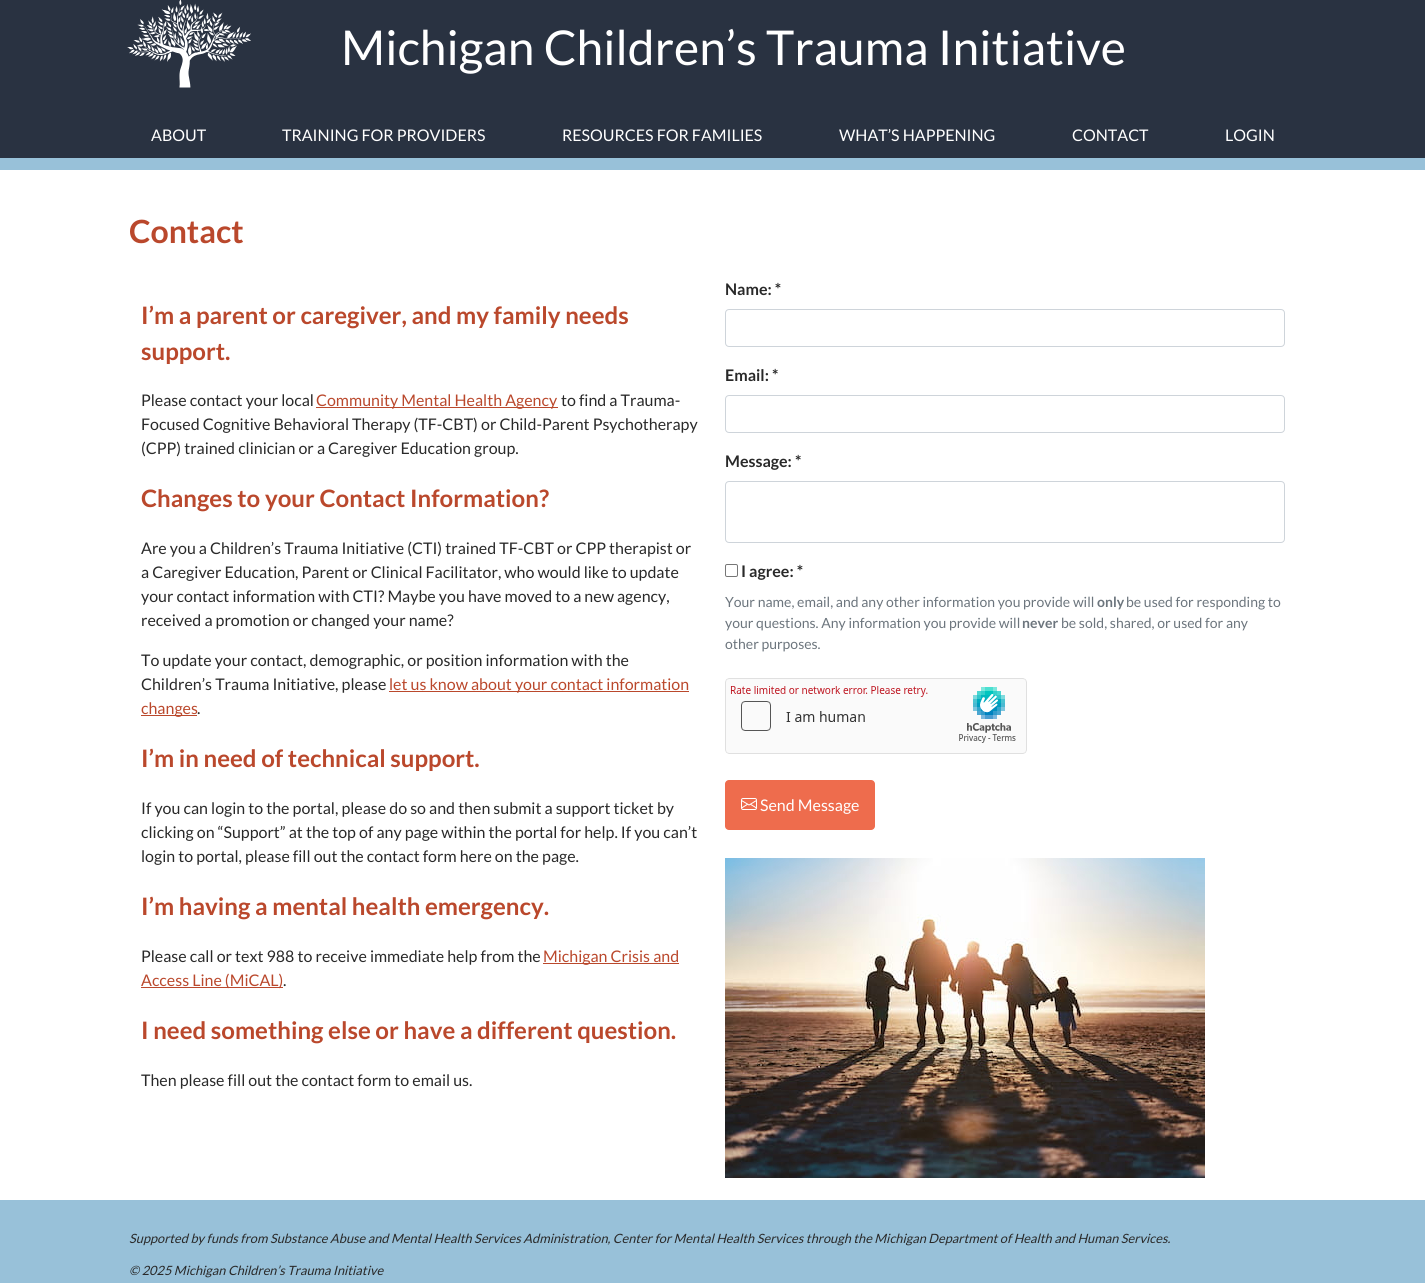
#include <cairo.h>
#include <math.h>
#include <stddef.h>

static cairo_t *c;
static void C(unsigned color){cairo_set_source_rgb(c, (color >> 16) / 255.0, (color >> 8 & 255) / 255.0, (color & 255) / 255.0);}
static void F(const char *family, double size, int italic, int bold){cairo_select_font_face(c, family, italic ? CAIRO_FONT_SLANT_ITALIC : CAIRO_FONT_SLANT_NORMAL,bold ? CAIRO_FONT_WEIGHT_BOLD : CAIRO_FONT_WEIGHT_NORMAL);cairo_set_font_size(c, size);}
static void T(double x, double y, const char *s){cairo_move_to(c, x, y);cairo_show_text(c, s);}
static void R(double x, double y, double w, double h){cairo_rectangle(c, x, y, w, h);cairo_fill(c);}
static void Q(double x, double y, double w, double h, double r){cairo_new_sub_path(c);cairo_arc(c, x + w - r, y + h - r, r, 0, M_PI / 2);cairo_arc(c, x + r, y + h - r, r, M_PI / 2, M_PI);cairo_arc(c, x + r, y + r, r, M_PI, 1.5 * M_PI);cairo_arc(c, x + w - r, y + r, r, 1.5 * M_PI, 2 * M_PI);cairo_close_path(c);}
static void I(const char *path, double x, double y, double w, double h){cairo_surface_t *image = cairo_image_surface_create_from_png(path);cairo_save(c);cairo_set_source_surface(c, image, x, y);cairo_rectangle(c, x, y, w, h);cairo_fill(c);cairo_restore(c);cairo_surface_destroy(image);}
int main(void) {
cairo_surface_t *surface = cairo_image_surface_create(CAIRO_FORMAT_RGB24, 1425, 1283);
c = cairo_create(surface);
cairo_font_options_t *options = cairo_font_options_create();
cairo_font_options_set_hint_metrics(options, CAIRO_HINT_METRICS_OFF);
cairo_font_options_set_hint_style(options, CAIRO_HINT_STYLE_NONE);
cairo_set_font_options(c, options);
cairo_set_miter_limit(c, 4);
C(0xffffff);
cairo_paint(c);
C(0x293241);
R(0,0,1425,158);
C(0x98c1d9);
R(0,158,1425,12);
I("1.png",127,0,124,88);
F("Lato",48,0,0);
C(0xffffff);
T(341,65,"Michigan Children’s Trauma Initiative");
F("Lato",16,0,0);
T(151,141,"ABOUT");
T(282,141,"TRAINING FOR PROVIDERS");
T(562,141,"RESOURCES FOR FAMILIES");
T(839,141,"WHAT’S HAPPENING");
T(1072,141,"CONTACT");
T(1225,141,"LOGIN");
F("Lato",32,0,1);
C(0xba482c);
T(129,243,"Contact");
F("Lato",24,0,1);
T(141,324,"I’m a parent or caregiver, and my family needs");
T(141,360,"support.");
F("Lato",16,0,0);
C(0x292929);
T(141,406,"Please contact your local");
C(0xba482c);
R(316,407,242,1);
T(316,406,"Community Mental Health Agency");
C(0x292929);
T(561,406,"to find a Trauma-");
T(141,430,"Focused Cognitive Behavioral Therapy (TF-CBT) or Child-Parent Psychotherapy");
T(141,454,"(CPP) trained clinician or a Caregiver Education group.");
F("Lato",24,0,1);
C(0xba482c);
T(141,507,"Changes to your Contact Information?");
F("Lato",16,0,0);
C(0x292929);
T(141,554,"Are you a Children’s Trauma Initiative (CTI) trained TF-CBT or CPP therapist or");
T(141,578,"a Caregiver Education, Parent or Clinical Facilitator, who would like to update");
T(141,602,"your contact information with CTI? Maybe you have moved to a new agency,");
T(141,626,"received a promotion or changed your name?");
T(141,666,"To update your contact, demographic, or position information with the");
T(141,690,"Children’s Trauma Initiative, please");
C(0xba482c);
R(389,691,300,1);
T(389,690,"let us know about your contact information");
R(141,715,56,1);
T(141,714,"changes");
C(0x292929);
T(197,714,".");
F("Lato",24,0,1);
C(0xba482c);
T(141,767,"I’m in need of technical support.");
F("Lato",16,0,0);
C(0x292929);
T(141,814,"If you can login to the portal, please do so and then submit a support ticket by");
T(141,838,"clicking on “Support” at the top of any page within the portal for help. If you can’t");
T(141,862,"login to portal, please fill out the contact form here on the page.");
F("Lato",24,0,1);
C(0xba482c);
T(141,915,"I’m having a mental health emergency.");
F("Lato",16,0,0);
C(0x292929);
T(141,962,"Please call or text 988 to receive immediate help from the");
C(0xba482c);
R(543,963,136,1);
T(543,962,"Michigan Crisis and");
R(141,987,142,1);
T(141,986,"Access Line (MiCAL)");
C(0x292929);
T(283,986,".");
F("Lato",24,0,1);
C(0xba482c);
T(141,1039,"I need something else or have a different question.");
F("Lato",16,0,0);
C(0x292929);
T(141,1086,"Then please fill out the contact form to email us.");
F("Lato",16,0,1);
T(725,295,"Name: *");
Q(725.5,309.5,559,37,3.5);
C(0xced4da);
cairo_set_line_width(c,1);
cairo_stroke(c);
C(0x292929);
T(725,381,"Email: *");
Q(725.5,395.5,559,37,3.5);
C(0xced4da);
cairo_stroke(c);
C(0x292929);
T(725,467,"Message: *");
Q(725.5,481.5,559,61,3.5);
C(0xced4da);
cairo_stroke(c);
Q(725.5,564.5,12,12,1.5);
C(0x767676);
cairo_stroke(c);
C(0x292929);
T(741,577,"I agree: *");
F("Lato",14,0,0);
C(0x6c757d);
T(725,607,"Your name, email, and any other information you provide will");
F("Lato",14,0,1);
T(1097,607,"only");
F("Lato",14,0,0);
T(1126,607,"be used for responding to");
T(725,628,"your questions. Any information you provide will");
F("Lato",14,0,1);
T(1022,628,"never");
F("Lato",14,0,0);
T(1061,628,"be sold, shared, or used for any");
T(725,649,"other purposes.");
I("2.png",725,678,302,76);
C(0xee6c4d);
Q(725,780,150,50,4);
cairo_fill(c);
I("3.png",741,798,16,12);
F("Lato",16,0,0);
C(0xffffff);
T(760,811,"Send Message");
I("4.png",725,858,480,320);
C(0x98c1d9);
R(0,1200,1425,83);
F("Lato",12.8,1,0);
C(0x292929);
T(129,1243,"Supported by funds from Substance Abuse and Mental Health Services Administration, Center for Mental Health Services through the Michigan Department of Health and Human Services.");
T(129,1275,"© 2025 Michigan Children’s Trauma Initiative");
cairo_surface_write_to_png(surface, "o.png");
cairo_font_options_destroy(options);
cairo_destroy(c);
cairo_surface_destroy(surface);
return 0;
}
